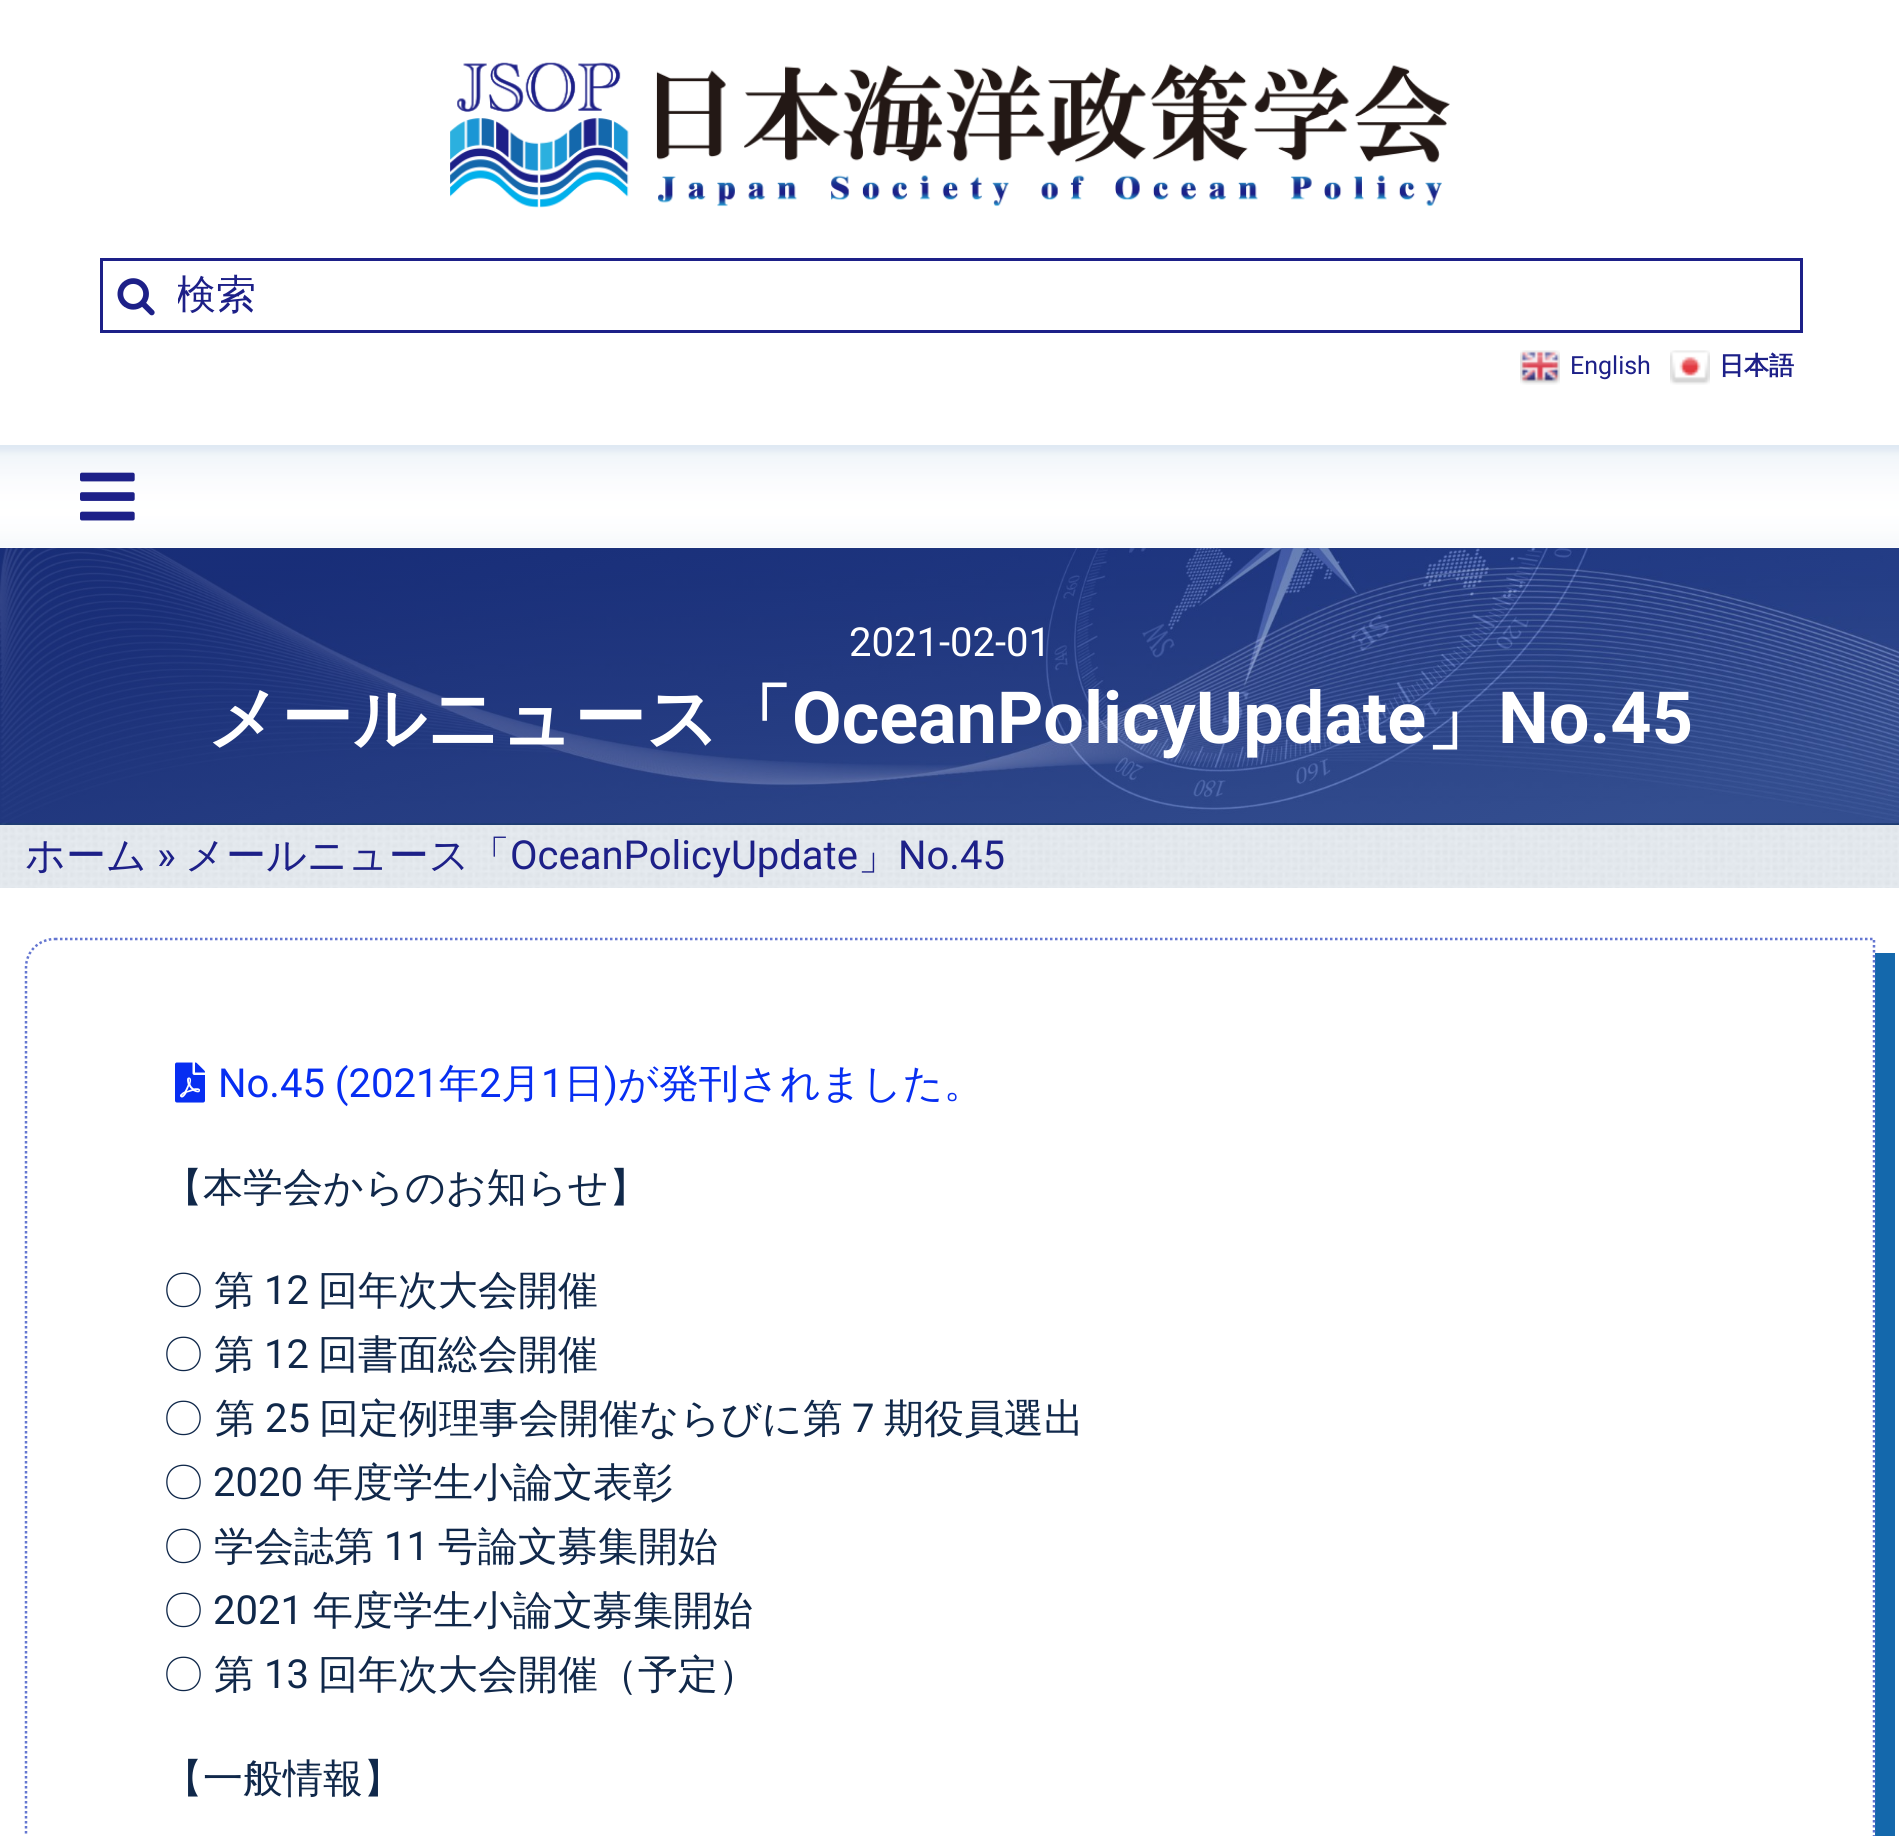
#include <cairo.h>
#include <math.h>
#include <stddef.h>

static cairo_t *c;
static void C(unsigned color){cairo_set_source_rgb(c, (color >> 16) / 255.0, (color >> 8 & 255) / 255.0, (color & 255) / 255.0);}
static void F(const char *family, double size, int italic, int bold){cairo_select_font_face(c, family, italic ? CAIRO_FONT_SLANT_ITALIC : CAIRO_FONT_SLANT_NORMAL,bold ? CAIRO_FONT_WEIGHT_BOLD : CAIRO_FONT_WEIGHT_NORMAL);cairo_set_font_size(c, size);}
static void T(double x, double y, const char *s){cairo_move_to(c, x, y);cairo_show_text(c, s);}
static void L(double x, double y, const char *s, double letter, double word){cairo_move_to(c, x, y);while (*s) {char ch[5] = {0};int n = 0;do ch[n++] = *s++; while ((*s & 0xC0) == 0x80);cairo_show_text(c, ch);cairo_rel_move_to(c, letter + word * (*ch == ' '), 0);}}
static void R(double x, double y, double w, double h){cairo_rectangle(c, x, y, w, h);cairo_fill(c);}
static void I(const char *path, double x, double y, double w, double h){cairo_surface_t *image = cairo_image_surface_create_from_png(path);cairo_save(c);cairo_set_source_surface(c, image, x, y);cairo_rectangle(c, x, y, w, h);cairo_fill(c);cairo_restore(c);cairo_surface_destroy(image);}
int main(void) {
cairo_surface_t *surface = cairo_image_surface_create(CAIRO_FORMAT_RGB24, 1899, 1836);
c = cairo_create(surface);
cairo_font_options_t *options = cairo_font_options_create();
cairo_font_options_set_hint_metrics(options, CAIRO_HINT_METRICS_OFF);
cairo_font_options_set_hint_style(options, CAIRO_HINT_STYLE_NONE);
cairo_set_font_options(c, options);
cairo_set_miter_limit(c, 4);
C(0xffffff);
cairo_paint(c);
I("1.png",0,825,1899,63);
I("2.png",450,62,1000,146);
cairo_rectangle(c,101.5,259.5,1700,72);
C(0x1d2088);
cairo_set_line_width(c,3);
cairo_stroke(c);
I("3.png",117,278,38,38);
cairo_save(c);
cairo_rectangle(c,178,270,1547,53);
cairo_clip(c);
F("WenQuanYi Zen Hei Medium",40,0,0);
T(176,308,"検索");
cairo_restore(c);
I("4.png",1520,350,40,35);
F("Roboto",25,0,0);
T(1570,374,"English");
I("5.png",1670,350,40,35);
F("WenQuanYi Zen Hei",25,0,1);
T(1719,374,"日本語");
I("6.png",0,445,1899,103);
I("7.png",80,472,55,49);
I("8.png",0,548,1899,277);
F("Roboto",40,0,0);
C(0xffffff);
T(849,656,"2021-02-01");
F("WenQuanYi Zen Hei",72,0,1);
T(207,743,"メールニュース「");
F("Roboto",72,0,1);
T(792,743,"OceanPolicyUpdate");
F("WenQuanYi Zen Hei",72,0,1);
T(1426,743,"」");
F("Roboto",72,0,1);
T(1498,743,"No.45");
cairo_set_source_rgba(c,0.878,0.918,0.957,0.5);
R(0,825,1899,63);
F("WenQuanYi Zen Hei Medium",40,0,0);
C(0x1d2088);
T(25,869,"ホーム");
F("Roboto",40,0,0);
T(157,869,"»");
F("WenQuanYi Zen Hei Medium",40,0,0);
T(185,869,"メールニュース「");
F("Roboto",40,0,0);
T(510,869,"OceanPolicyUpdate");
F("WenQuanYi Zen Hei Medium",40,0,0);
T(858,869,"」");
F("Roboto",40,0,0);
T(898,869,"No.45");
C(0x1468ac);
cairo_new_path(c);
cairo_move_to(c,45,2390);
cairo_line_to(c,45,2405);
cairo_line_to(c,1865,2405);
cairo_curve_to(c,1882,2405,1895,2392,1895,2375);
cairo_line_to(c,1895,953);
cairo_line_to(c,1875,953);
cairo_line_to(c,1875,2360);
cairo_curve_to(c,1875,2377,1862,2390,1845,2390);
cairo_close_path(c);
cairo_fill(c);
cairo_new_path(c);
cairo_move_to(c,55,939);
cairo_line_to(c,1874,939);
cairo_line_to(c,1874,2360);
cairo_curve_to(c,1874,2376,1861,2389,1845,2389);
cairo_line_to(c,26,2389);
cairo_line_to(c,26,967.5);
cairo_curve_to(c,26,951.5,39,939,55,939);
cairo_close_path(c);
C(0x6476d1);
cairo_set_line_width(c,2.5);
cairo_set_dash(c,(double[]){2.5,2.5},2,0);
cairo_stroke(c);
I("9.png",175,1062,30,41);
C(0x072ef2);
T(218,1097,"No.45 (2021");
F("WenQuanYi Zen Hei Medium",40,0,0);
T(439,1097,"年");
F("Roboto",40,0,0);
T(479,1097,"2");
F("WenQuanYi Zen Hei Medium",40,0,0);
T(501,1097,"月");
F("Roboto",40,0,0);
T(541,1097,"1");
F("WenQuanYi Zen Hei Medium",40,0,0);
T(564,1097,"日");
F("Roboto",40,0,0);
T(604,1097,")");
F("WenQuanYi Zen Hei Medium",40,0,0);
T(618,1097,"が発刊されました。");
C(0x10284a);
T(163,1201,"【本学会からのお知らせ】");
L(163,1304,"〇 第",0,-1);
F("Roboto",40,0,0);
T(264,1304,"12");
F("WenQuanYi Zen Hei Medium",40,0,0);
T(318,1304,"回年次大会開催");
L(163,1368,"〇 第",0,-1);
F("Roboto",40,0,0);
T(264,1368,"12");
F("WenQuanYi Zen Hei Medium",40,0,0);
T(318,1368,"回書面総会開催");
T(163,1432,"〇 第");
F("Roboto",40,0,0);
T(265,1432,"25");
F("WenQuanYi Zen Hei Medium",40,0,0);
T(319,1432,"回定例理事会開催ならびに第");
F("Roboto",40,0,0);
T(852,1432,"7");
F("WenQuanYi Zen Hei Medium",40,0,0);
T(884,1432,"期役員選出");
T(163,1496,"〇");
F("Roboto",40,0,0);
T(213,1496,"2020");
F("WenQuanYi Zen Hei Medium",40,0,0);
T(313,1496,"年度学生小論文表彰");
L(163,1560,"〇 学会誌第",0,-1);
F("Roboto",40,0,0);
T(384,1560,"11");
F("WenQuanYi Zen Hei Medium",40,0,0);
T(438,1560,"号論文募集開始");
T(163,1624,"〇");
F("Roboto",40,0,0);
T(213,1624,"2021");
F("WenQuanYi Zen Hei Medium",40,0,0);
T(313,1624,"年度学生小論文募集開始");
L(163,1688,"〇 第",0,-1);
F("Roboto",40,0,0);
T(264,1688,"13");
F("WenQuanYi Zen Hei Medium",40,0,0);
T(318,1688,"回年次大会開催（予定）");
T(163,1792,"【一般情報】");
cairo_surface_write_to_png(surface, "o.png");
cairo_font_options_destroy(options);
cairo_destroy(c);
cairo_surface_destroy(surface);
return 0;
}
